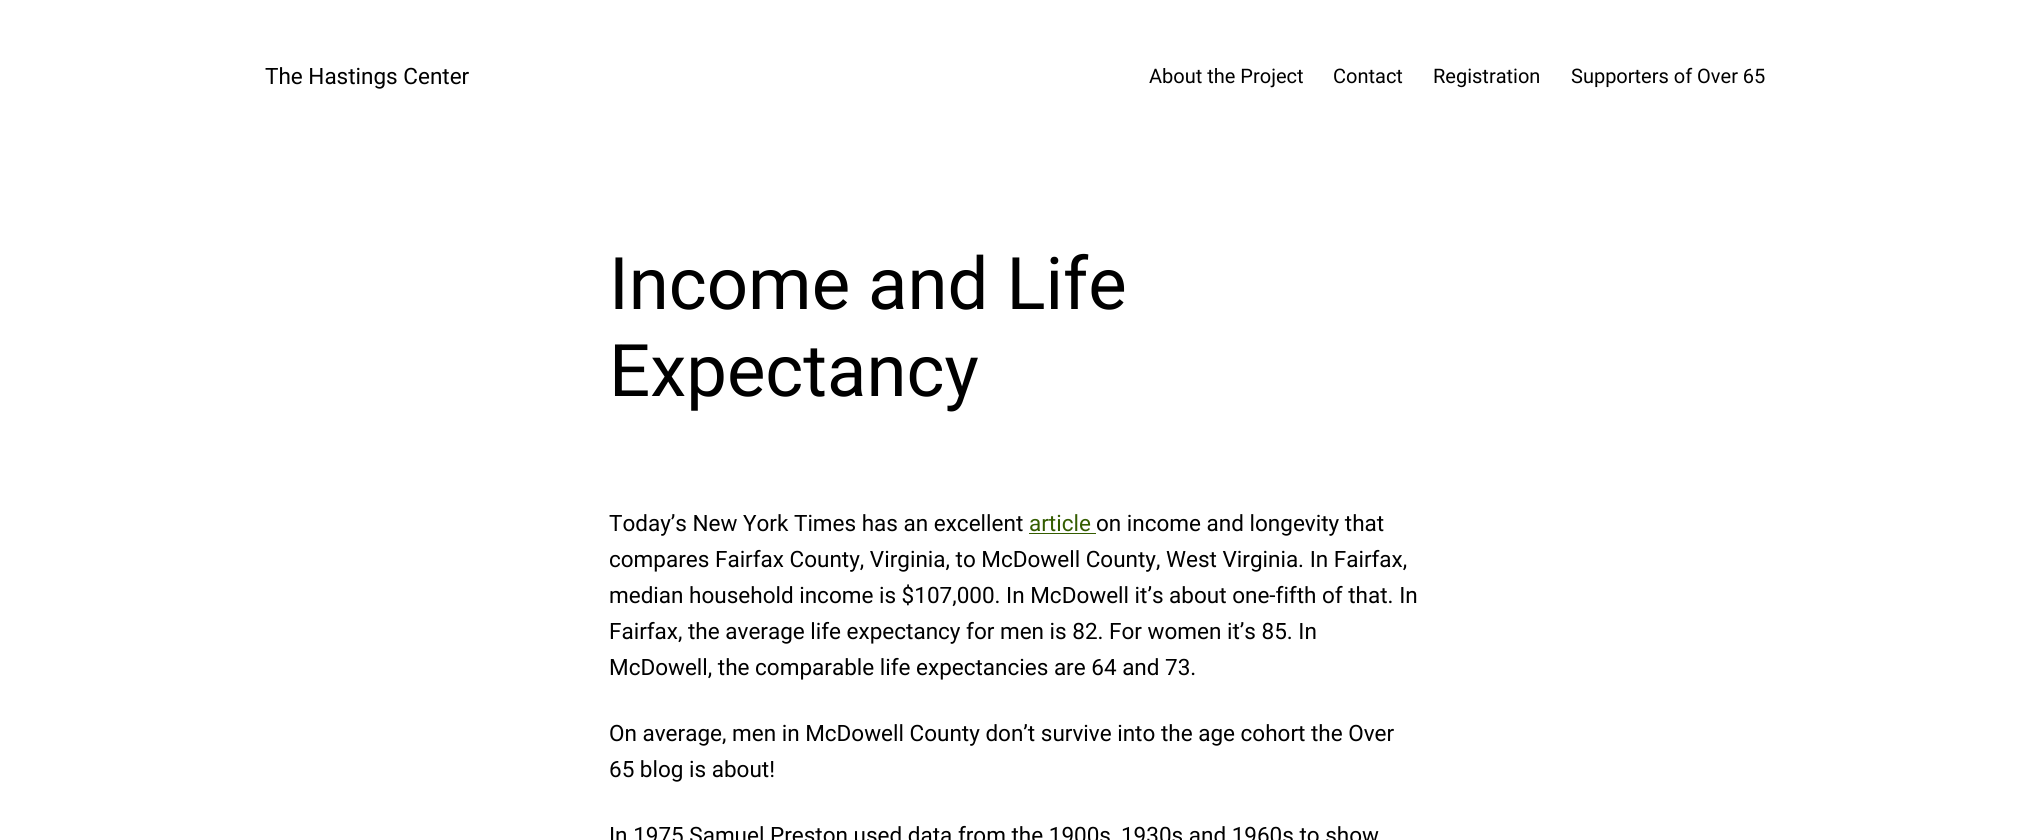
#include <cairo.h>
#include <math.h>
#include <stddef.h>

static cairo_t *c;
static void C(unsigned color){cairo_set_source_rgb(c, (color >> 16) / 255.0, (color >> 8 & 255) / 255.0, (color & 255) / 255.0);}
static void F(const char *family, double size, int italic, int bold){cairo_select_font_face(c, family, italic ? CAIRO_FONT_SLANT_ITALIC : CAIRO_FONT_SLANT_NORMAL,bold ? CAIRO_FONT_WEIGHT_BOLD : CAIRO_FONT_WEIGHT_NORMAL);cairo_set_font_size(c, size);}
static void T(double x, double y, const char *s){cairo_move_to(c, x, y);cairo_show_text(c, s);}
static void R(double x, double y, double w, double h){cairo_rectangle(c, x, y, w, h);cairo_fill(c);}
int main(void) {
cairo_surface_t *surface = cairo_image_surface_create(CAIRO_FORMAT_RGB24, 2030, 840);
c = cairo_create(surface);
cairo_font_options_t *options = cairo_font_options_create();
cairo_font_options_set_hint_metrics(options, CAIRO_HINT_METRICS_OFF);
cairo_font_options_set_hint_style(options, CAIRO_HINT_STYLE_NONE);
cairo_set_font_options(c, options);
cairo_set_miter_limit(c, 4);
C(0xffffff);
cairo_paint(c);
F("Roboto",22.5,0,0);
C(0x000000);
T(265,84,"The Hastings Center");
F("Roboto",20,0,0);
T(1149,83,"About the Project");
T(1333,83,"Contact");
T(1433,83,"Registration");
T(1571,83,"Supporters of Over 65");
F("Roboto",72.5,0,0);
T(609,309,"Income and Life");
T(609,396,"Expectancy");
F("Roboto",22.5,0,0);
T(609,531,"Today’s New York Times has an excellent");
C(0x345c00);
T(1029,531,"article");
R(1029,533,67,1);
C(0x000000);
T(1096,531,"on income and longevity that");
T(609,567,"compares Fairfax County, Virginia, to McDowell County, West Virginia. In Fairfax,");
T(609,603,"median household income is $107,000. In McDowell it’s about one-fifth of that. In");
T(609,639,"Fairfax, the average life expectancy for men is 82. For women it’s 85. In");
T(609,675,"McDowell, the comparable life expectancies are 64 and 73.");
T(609,741,"On average, men in McDowell County don’t survive into the age cohort the Over");
T(609,777,"65 blog is about!");
T(609,843,"In 1975 Samuel Preston used data from the 1900s, 1930s and 1960s to show");
cairo_surface_write_to_png(surface, "o.png");
cairo_font_options_destroy(options);
cairo_destroy(c);
cairo_surface_destroy(surface);
return 0;
}
